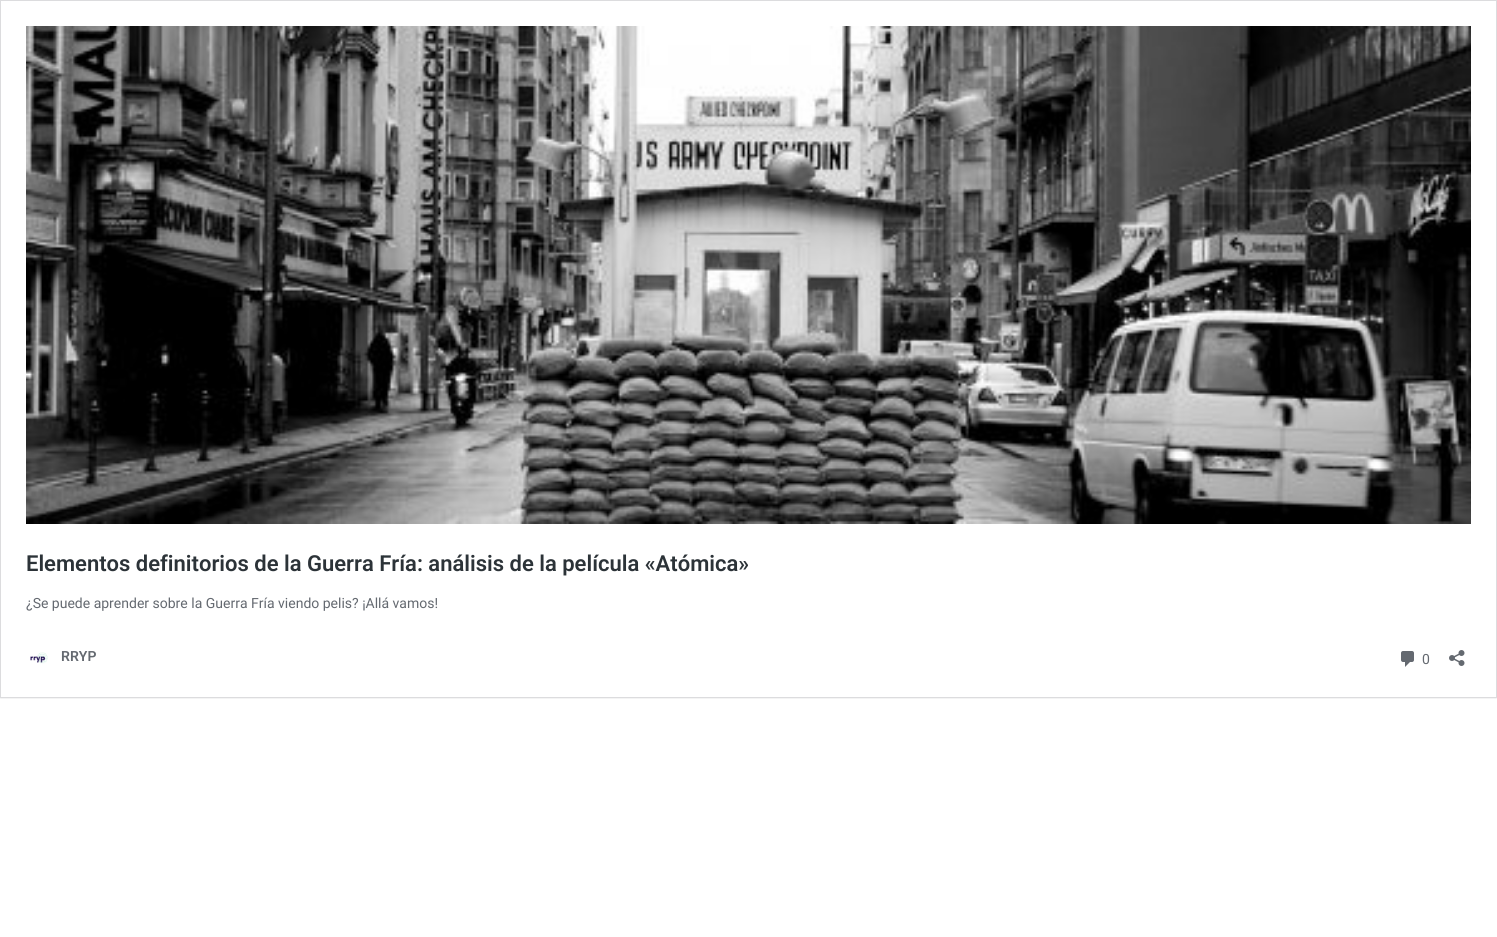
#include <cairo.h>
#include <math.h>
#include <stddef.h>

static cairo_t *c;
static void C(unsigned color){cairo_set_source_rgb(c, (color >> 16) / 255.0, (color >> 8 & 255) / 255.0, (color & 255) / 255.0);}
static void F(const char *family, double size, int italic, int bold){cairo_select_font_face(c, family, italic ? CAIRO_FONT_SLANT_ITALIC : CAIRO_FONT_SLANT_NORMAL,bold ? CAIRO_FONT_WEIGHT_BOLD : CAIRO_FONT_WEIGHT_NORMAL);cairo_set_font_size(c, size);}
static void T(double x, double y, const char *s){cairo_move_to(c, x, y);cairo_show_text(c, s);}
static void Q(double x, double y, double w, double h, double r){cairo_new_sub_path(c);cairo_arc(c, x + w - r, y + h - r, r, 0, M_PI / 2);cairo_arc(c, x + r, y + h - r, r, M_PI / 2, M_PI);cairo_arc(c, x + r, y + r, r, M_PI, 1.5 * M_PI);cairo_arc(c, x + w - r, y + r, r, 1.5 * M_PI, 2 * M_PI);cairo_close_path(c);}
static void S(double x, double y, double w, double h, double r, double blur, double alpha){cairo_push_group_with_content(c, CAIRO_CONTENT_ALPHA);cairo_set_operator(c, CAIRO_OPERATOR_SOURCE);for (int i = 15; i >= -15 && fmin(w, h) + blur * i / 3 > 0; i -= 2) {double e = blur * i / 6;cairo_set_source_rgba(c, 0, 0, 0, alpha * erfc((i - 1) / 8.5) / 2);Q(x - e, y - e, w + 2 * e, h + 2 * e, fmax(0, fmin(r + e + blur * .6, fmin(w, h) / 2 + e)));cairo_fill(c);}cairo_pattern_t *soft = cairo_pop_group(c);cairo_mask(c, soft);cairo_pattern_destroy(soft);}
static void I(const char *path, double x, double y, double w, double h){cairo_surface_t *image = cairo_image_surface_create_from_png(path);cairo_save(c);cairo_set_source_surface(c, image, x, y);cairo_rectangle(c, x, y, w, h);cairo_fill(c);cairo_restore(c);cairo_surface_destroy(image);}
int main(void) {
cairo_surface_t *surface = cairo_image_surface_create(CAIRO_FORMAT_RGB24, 1497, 937);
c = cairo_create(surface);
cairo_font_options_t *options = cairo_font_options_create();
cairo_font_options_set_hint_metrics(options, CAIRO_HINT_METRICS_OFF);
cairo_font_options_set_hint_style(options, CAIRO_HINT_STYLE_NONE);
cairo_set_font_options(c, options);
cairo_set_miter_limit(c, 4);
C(0xffffff);
cairo_paint(c);
cairo_save(c);
cairo_rectangle(c,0,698,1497,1);
cairo_clip(c);
C(0x000000);
S(0,1,1497,698,0,.5,.05);
cairo_restore(c);
cairo_rectangle(c,.5,.5,1496,697);
C(0xdcdcde);
cairo_set_line_width(c,1);
cairo_stroke(c);
I("1.png",26,26,1445,498);
F("Roboto SemiBold",22,0,0);
C(0x2c3338);
T(26,571,"Elementos definitorios de la Guerra Fría: análisis de la película «Atómica»");
F("Roboto",14,0,0);
C(0x646970);
T(26,608,"¿Se puede aprender sobre la Guerra Fría viendo pelis? ¡Allá vamos!");
I("2.png",30,652,18,12);
F("Roboto SemiBold",14,0,0);
T(61,661,"RRYP");
I("3.png",1401,651,13,16);
F("Roboto",14,0,0);
T(1422,664,"0");
I("4.png",1449,650,16,16);
cairo_surface_write_to_png(surface, "o.png");
cairo_font_options_destroy(options);
cairo_destroy(c);
cairo_surface_destroy(surface);
return 0;
}
